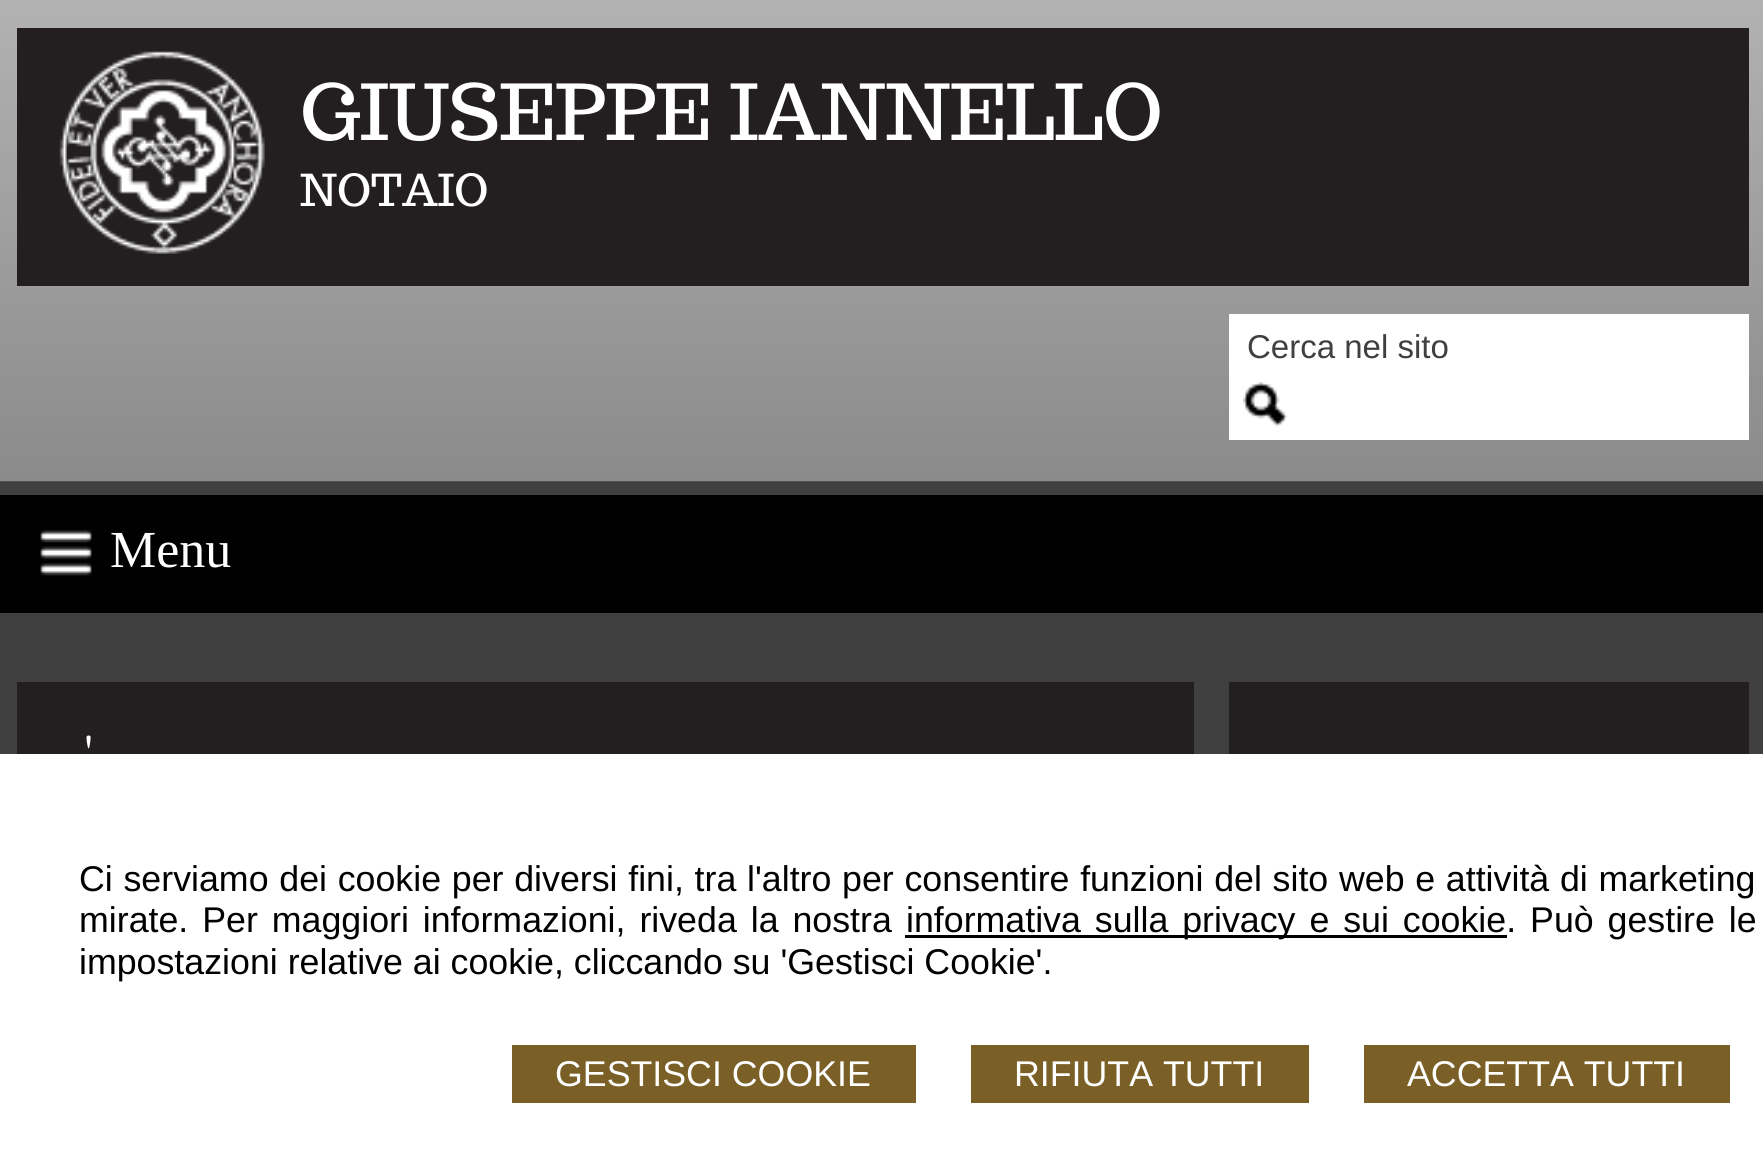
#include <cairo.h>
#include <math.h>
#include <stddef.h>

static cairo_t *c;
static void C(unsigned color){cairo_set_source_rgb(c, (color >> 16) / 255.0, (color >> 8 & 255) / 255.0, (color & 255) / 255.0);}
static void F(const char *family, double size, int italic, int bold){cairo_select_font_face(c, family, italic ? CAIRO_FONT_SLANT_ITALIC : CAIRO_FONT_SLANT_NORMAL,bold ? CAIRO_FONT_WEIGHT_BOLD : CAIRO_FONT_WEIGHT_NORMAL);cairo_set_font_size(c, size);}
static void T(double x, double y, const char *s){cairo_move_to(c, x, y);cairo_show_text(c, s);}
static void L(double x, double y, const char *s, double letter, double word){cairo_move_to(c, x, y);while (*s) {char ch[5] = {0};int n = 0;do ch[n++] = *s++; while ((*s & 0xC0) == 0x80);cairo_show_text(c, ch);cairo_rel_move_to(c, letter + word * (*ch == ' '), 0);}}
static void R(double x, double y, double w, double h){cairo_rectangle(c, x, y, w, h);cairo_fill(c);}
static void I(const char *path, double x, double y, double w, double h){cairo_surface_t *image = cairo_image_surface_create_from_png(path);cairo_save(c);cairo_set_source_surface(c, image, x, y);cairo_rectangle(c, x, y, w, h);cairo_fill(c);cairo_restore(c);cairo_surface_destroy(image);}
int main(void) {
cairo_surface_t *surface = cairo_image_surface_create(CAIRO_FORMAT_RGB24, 1763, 1170);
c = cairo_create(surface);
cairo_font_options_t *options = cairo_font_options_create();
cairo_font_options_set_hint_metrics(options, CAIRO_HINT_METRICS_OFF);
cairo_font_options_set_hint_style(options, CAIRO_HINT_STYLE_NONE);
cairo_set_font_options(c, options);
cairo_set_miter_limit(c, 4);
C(0x404041);
cairo_paint(c);
I("1.png",0,0,1763,482);
C(0x231f20);
R(17,28,1732,258);
I("2.png",59,51,206,203);
F("Trocchi",77,0,0);
C(0xffffff);
T(300,140,"GIUSEPPE IANNELLO");
F("Trocchi",44,0,0);
T(300,206,"NOTAIO");
R(1229,314,520,126);
F("Liberation Sans",33,0,0);
C(0x404041);
T(1247,358,"Cerca nel sito");
I("3.png",1243,382,44,45);
C(0x010101);
R(0,495,1763,118);
I("4.png",40,530,52,46);
F("Liberation Serif",52,0,0);
C(0xffffff);
T(110,567,"Menu");
C(0x231f20);
R(17,682,1177,72);
F("Trocchi",50,0,0);
C(0xffffff);
T(83,773,"'");
C(0x231f20);
R(1229,682,520,72);
C(0xffffff);
R(0,754,1763,416);
F("Liberation Sans",35.75,0,0);
C(0x000000);
L(79,891,"Ci serviamo dei cookie per diversi fini, tra l'altro per consentire funzioni del sito web e attività di marketing",0,.8);
L(79,932,"mirate. Per maggiori informazioni, riveda la nostra",0,4);
R(905,935,602,3);
L(906,932,"informativa sulla privacy e sui cookie. Può gestire le",0,4);
T(79,974,"impostazioni relative ai cookie, cliccando su 'Gestisci Cookie'.");
C(0x7a6027);
R(512,1045,404,58);
C(0xffffff);
T(555,1086,"GESTISCI COOKIE");
C(0x7a6027);
R(971,1045,338,58);
C(0xffffff);
T(1014,1086,"RIFIUTA TUTTI");
C(0x7a6027);
R(1364,1045,366,58);
C(0xffffff);
T(1407,1086,"ACCETTA TUTTI");
cairo_surface_write_to_png(surface, "o.png");
cairo_font_options_destroy(options);
cairo_destroy(c);
cairo_surface_destroy(surface);
return 0;
}
